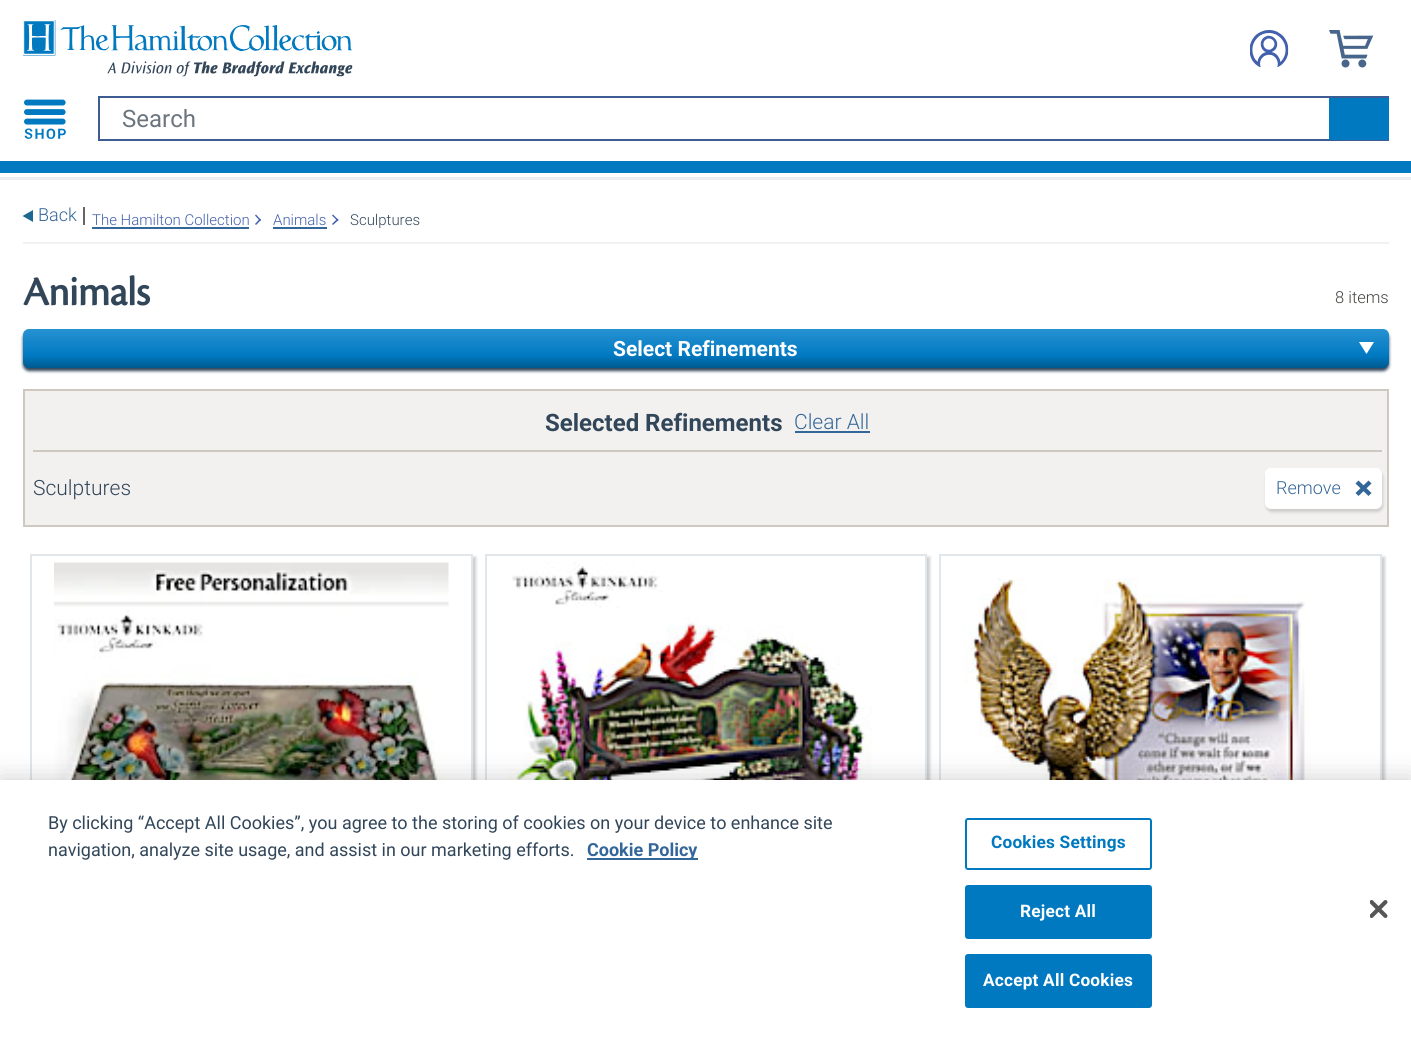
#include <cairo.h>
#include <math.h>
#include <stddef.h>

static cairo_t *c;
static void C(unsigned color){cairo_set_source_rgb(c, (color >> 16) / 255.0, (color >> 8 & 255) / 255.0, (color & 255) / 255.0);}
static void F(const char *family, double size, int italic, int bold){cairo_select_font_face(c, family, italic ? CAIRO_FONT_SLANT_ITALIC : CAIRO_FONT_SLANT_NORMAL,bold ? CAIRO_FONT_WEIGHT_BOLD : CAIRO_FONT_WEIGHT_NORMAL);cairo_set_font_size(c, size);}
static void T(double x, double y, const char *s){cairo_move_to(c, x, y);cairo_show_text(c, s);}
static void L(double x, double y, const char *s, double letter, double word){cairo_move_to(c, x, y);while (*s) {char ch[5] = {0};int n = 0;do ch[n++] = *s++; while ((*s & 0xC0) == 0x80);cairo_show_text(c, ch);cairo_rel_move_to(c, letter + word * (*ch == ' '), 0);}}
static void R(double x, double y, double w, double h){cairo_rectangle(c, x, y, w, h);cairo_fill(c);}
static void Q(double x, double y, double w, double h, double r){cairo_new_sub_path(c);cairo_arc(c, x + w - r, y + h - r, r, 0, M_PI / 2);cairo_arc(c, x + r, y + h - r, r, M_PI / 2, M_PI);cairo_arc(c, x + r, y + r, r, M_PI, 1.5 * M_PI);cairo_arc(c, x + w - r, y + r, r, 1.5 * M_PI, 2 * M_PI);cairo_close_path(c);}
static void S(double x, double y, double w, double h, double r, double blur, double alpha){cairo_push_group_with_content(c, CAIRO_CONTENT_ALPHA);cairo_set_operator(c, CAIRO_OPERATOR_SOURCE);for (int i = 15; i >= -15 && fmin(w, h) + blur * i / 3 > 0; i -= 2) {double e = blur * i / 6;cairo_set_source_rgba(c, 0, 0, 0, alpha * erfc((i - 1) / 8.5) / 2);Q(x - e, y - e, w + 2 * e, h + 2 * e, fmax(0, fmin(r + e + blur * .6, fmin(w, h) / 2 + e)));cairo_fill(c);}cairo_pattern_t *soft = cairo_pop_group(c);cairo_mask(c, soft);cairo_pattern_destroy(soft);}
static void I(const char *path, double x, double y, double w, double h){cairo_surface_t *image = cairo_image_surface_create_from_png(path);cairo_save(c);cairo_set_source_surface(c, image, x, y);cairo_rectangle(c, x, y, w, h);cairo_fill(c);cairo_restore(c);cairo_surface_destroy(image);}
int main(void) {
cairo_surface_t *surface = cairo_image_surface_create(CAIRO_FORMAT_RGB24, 1411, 1037);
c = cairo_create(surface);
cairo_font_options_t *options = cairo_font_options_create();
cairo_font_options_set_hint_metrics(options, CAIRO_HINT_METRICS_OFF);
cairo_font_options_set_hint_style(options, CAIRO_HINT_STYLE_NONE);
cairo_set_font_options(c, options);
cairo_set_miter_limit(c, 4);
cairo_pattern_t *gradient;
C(0xffffff);
cairo_paint(c);
I("1.png",23,20,330,57);
I("2.png",1250,30,39,38);
I("3.png",1329,30,45,38);
I("4.png",24,99,42,40);
cairo_rectangle(c,99,97,1289,43);
C(0x3d5c91);
cairo_stroke(c);
F("Roboto",24,0,0);
C(0x6c757d);
T(122,127,"Search");
C(0x0079c1);
R(1329,98,60,42);
R(0,161,1411,12);
C(0xeaedf1);
R(0,177,1411,3);
C(0xf2f1f0);
R(23,242,1366,2);
F("Roboto Light",15,0,0);
C(0x4360ae);
T(92,225,"The Hamilton Collection");
C(0xffffff);
R(91,214,1,2);
C(0x1e6791);
cairo_new_path(c);
cairo_move_to(c,33,210);
cairo_line_to(c,33,222);
cairo_line_to(c,22.5,216);
cairo_close_path(c);
cairo_fill(c);
F("Roboto Light",18,0,0);
C(0x336699);
T(38,221,"Back");
C(0x686664);
R(83,207,2,18);
C(0x336699);
R(92,227,157,2);
C(0x4360ae);
cairo_new_path(c);
cairo_move_to(c,256,214.5);
cairo_line_to(c,261,220);
cairo_line_to(c,260,221);
cairo_line_to(c,255,215.5);
cairo_close_path(c);
cairo_fill(c);
cairo_new_path(c);
cairo_move_to(c,260,218.5);
cairo_line_to(c,261,220);
cairo_line_to(c,256,225);
cairo_line_to(c,255,224);
cairo_close_path(c);
cairo_fill(c);
F("Roboto Light",15,0,0);
T(273,225,"Animals");
C(0x336699);
R(273,227,54,2);
C(0x4360ae);
cairo_new_path(c);
cairo_move_to(c,333,214.5);
cairo_line_to(c,338.5,220);
cairo_line_to(c,337.5,221);
cairo_line_to(c,332,215.5);
cairo_close_path(c);
cairo_fill(c);
cairo_new_path(c);
cairo_move_to(c,337.5,218.5);
cairo_line_to(c,338.5,220);
cairo_line_to(c,333,225);
cairo_line_to(c,332,224);
cairo_close_path(c);
cairo_fill(c);
C(0x32465a);
T(350,225,"Sculptures");
F("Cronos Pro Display",42,0,1);
T(23,305,"Animals");
F("Roboto Light",16.5,0,0);
C(0x474441);
T(1335,303,"8 items");
C(0x32465a);
S(23,332,1366,39,6,1.5,1);
gradient = cairo_pattern_create_linear(706,328,706,368);
cairo_pattern_add_color_stop_rgba(gradient,0,0.161,0.576,0.827,1);
cairo_pattern_add_color_stop_rgba(gradient,.69,0,0.475,0.757,1);
cairo_pattern_add_color_stop_rgba(gradient,1,0,0.349,0.557,1);
cairo_set_source(c,gradient);
cairo_pattern_destroy(gradient);
Q(23,329,1366,39,6);
cairo_fill(c);
F("Roboto",21,0,1);
C(0xffffff);
T(613,356,"Select Refinements");
cairo_new_path(c);
cairo_move_to(c,1359,342);
cairo_line_to(c,1374,342);
cairo_line_to(c,1366.5,354);
cairo_close_path(c);
cairo_fill(c);
C(0xf2f1f0);
cairo_rectangle(c,24,390,1364,136);
cairo_fill_preserve(c);
C(0xcfc8c0);
cairo_stroke(c);
F("Roboto",24,0,1);
C(0x32465a);
T(545,431,"Selected Refinements");
F("Roboto Light",21,0,0);
C(0x336699);
T(794,429,"Clear All");
R(795,431,75,2);
C(0xcfc8c0);
R(33,450,1349,2);
C(0x32465a);
T(33,495,"Sculptures");
C(0x000000);
S(1266,471,117,41,6,1.5,.16);
C(0xffffff);
Q(1265,468,117,41,6);
cairo_fill(c);
C(0x336699);
cairo_new_path(c);
cairo_move_to(c,1358.5,480.5);
cairo_line_to(c,1371.5,493);
cairo_line_to(c,1368.5,496);
cairo_line_to(c,1355.5,483.5);
cairo_close_path(c);
cairo_fill(c);
F("Roboto Light",18,0,0);
T(1276,494,"Remove");
cairo_new_path(c);
cairo_move_to(c,1371.5,483.5);
cairo_line_to(c,1358.5,496);
cairo_line_to(c,1355.5,493);
cairo_line_to(c,1368.5,480.5);
cairo_close_path(c);
cairo_fill(c);
cairo_save(c);
cairo_rectangle(c,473,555,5,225);
cairo_clip(c);
C(0x000000);
S(33,557,443,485,0,1.5,.2);
cairo_restore(c);
cairo_rectangle(c,31,555,441,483);
C(0xe0e6ea);
cairo_stroke(c);
I("5.png",54,562,395,218);
cairo_save(c);
cairo_rectangle(c,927,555,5,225);
cairo_clip(c);
C(0x000000);
S(488,557,442,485,0,1.5,.2);
cairo_restore(c);
cairo_rectangle(c,486,555,440,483);
cairo_stroke(c);
I("6.png",508,562,386,218);
cairo_save(c);
cairo_rectangle(c,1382,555,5,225);
cairo_clip(c);
C(0x000000);
S(942,557,443,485,0,1.5,.2);
cairo_restore(c);
cairo_rectangle(c,940,555,441,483);
cairo_stroke(c);
I("7.png",963,578,379,202);
C(0x000000);
S(0,780,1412,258,0,13.5,.2);
C(0xffffff);
R(0,780,1411,257);
F("Roboto",18,0,0);
C(0x32465a);
T(48,829,"By clicking “Accept All Cookies”, you agree to the storing of cookies on your device to enhance site");
T(48,856,"navigation, analyze site usage, and assist in our marketing efforts.");
C(0x336699);
R(587,858,111,2);
F("Roboto",18,0,1);
T(587,856,"Cookie Policy");
Q(966,819,185,50,2);
C(0x0079c1);
cairo_stroke(c);
F("Roboto",17.25,0,1);
L(991,848,"Cookies Settings",.2,0);
Q(966,886,185,52,2);
cairo_fill_preserve(c);
cairo_stroke(c);
C(0xffffff);
L(1020,917,"Reject All",.2,0);
C(0x0079c1);
Q(966,955,185,52,2);
cairo_fill_preserve(c);
cairo_stroke(c);
C(0xffffff);
L(983,986,"Accept All Cookies",.2,0);
I("8.png",1370,900,18,18);
cairo_surface_write_to_png(surface, "o.png");
cairo_font_options_destroy(options);
cairo_destroy(c);
cairo_surface_destroy(surface);
return 0;
}
